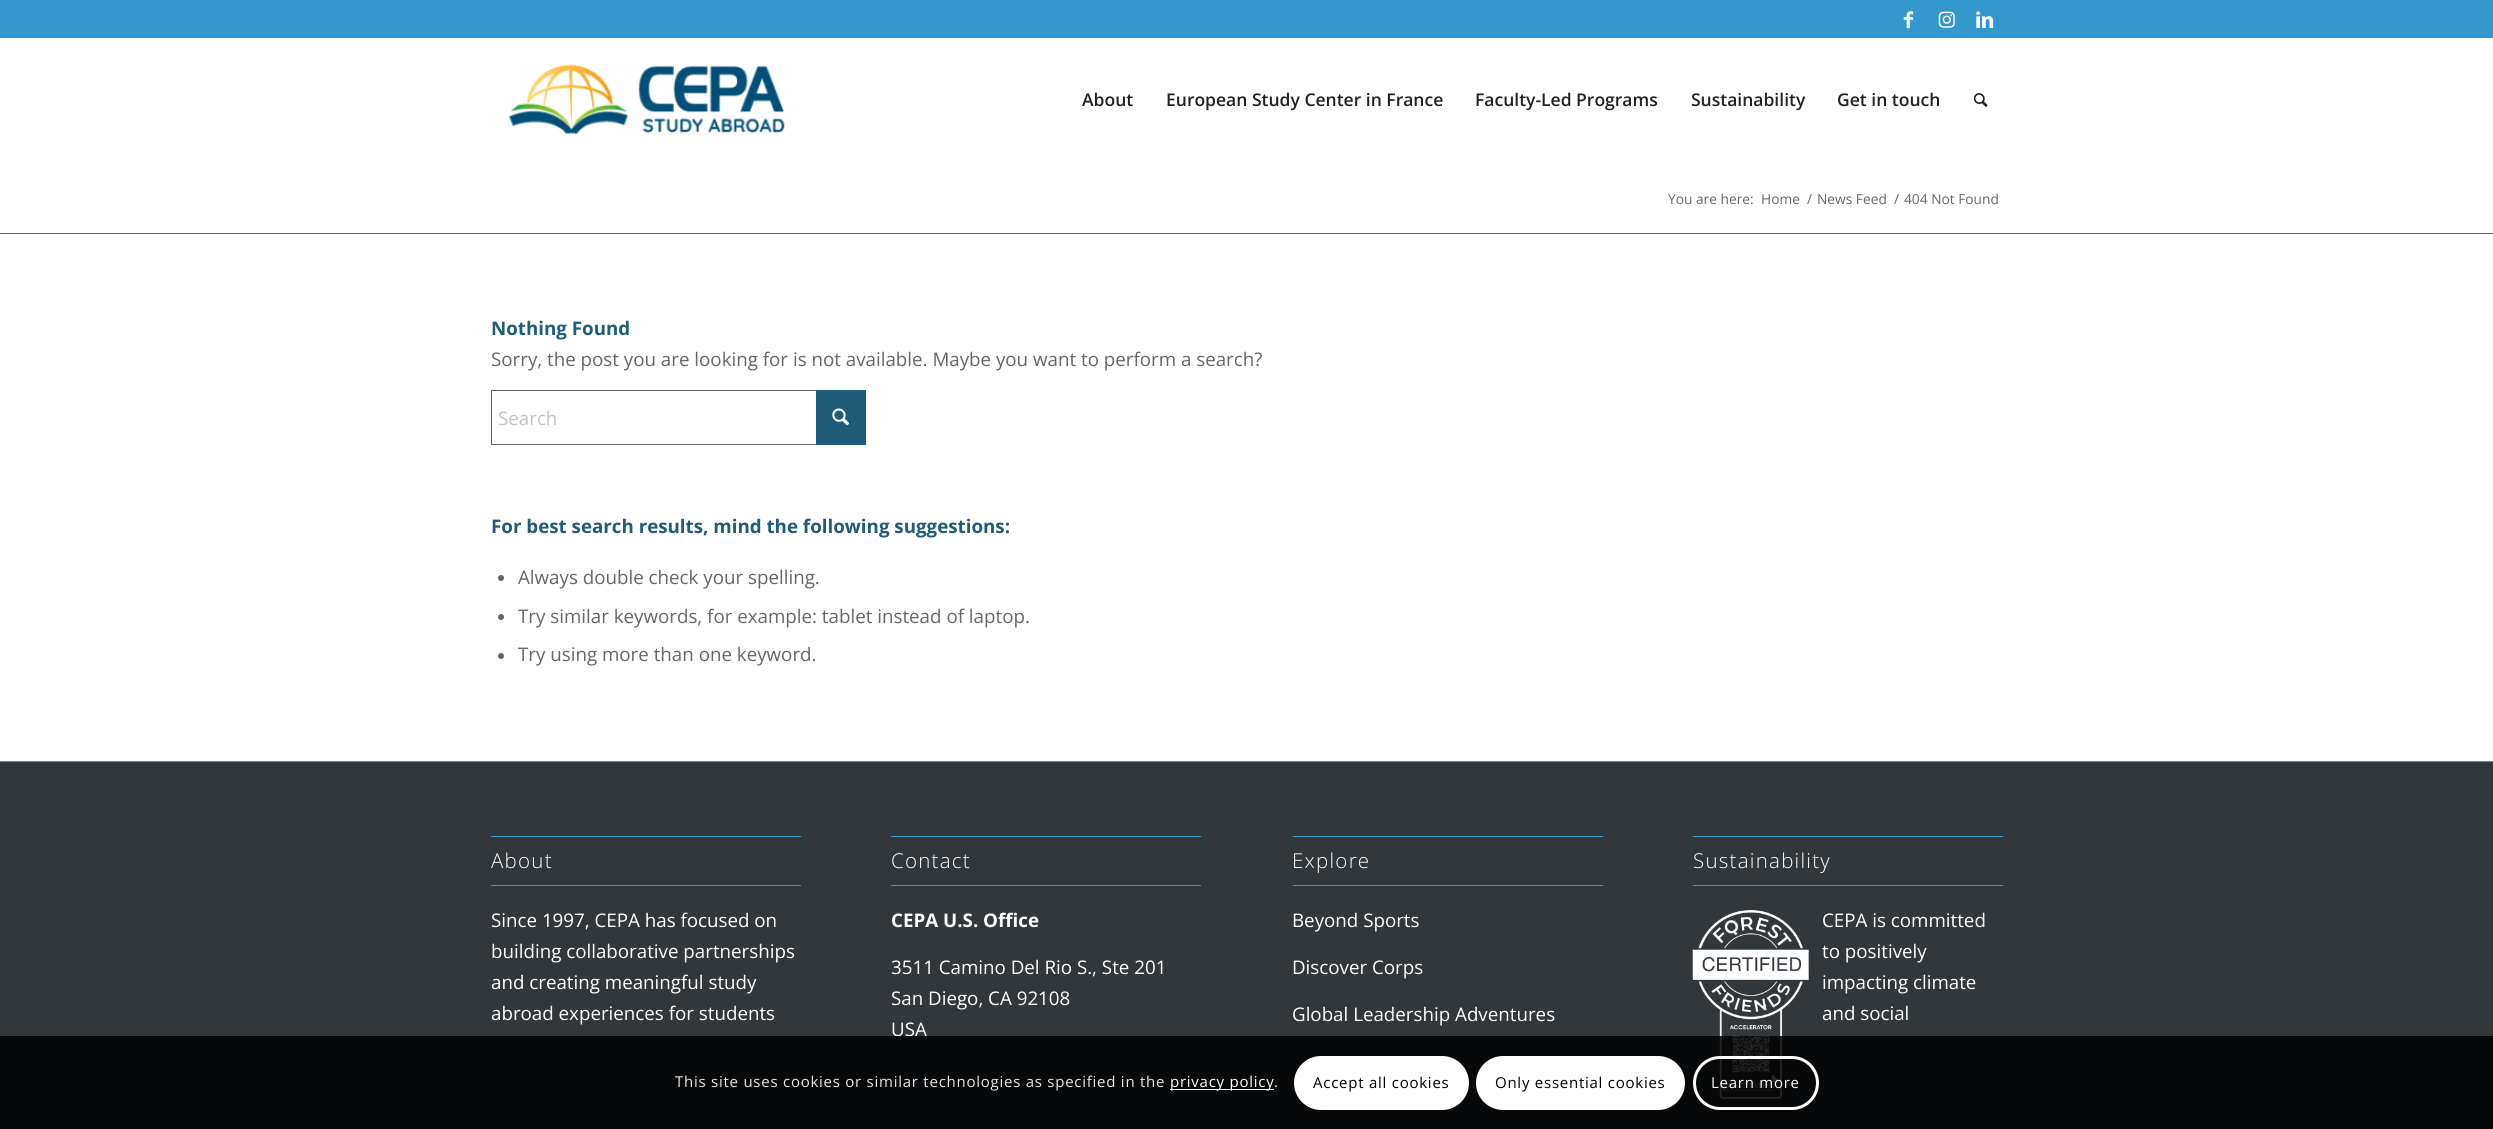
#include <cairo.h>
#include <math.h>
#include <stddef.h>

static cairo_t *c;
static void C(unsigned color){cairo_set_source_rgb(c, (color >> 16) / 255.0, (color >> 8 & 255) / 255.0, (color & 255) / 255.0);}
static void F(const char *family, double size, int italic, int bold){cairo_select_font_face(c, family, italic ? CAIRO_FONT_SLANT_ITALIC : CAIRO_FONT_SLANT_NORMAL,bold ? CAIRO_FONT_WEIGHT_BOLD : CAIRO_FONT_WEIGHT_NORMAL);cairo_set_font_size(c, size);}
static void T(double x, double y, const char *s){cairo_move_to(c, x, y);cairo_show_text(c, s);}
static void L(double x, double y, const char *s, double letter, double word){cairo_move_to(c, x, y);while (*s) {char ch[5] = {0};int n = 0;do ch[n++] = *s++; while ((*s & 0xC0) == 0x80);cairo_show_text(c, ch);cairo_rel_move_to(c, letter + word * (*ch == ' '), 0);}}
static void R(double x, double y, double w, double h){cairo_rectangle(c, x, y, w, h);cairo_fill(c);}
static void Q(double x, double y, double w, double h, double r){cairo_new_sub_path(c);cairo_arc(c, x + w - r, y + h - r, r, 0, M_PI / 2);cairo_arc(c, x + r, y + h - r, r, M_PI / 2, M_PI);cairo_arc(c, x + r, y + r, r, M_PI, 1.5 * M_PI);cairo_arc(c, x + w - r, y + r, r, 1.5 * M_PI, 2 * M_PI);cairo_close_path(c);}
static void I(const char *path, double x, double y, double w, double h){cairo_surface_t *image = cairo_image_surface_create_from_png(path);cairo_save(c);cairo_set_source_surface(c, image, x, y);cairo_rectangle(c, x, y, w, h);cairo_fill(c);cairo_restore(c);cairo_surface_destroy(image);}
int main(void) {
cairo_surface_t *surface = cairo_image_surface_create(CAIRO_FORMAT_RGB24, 2493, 1129);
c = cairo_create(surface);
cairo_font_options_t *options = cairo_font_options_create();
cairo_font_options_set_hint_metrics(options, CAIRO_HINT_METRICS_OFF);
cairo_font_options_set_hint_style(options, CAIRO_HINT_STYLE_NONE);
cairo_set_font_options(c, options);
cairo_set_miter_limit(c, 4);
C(0xffffff);
cairo_paint(c);
C(0x3399cc);
R(0,0,2493,38);
I("1.png",1903,11,11,18);
I("2.png",1938,11,17,17);
I("3.png",1976,11,18,17);
I("4.png",509,63,276,72);
F("Open Sans SemiBold",17.5,0,0);
C(0x222222);
T(1082,106,"About");
T(1166,106,"European Study Center in France");
T(1475,106,"Faculty-Led Programs");
T(1691,106,"Sustainability");
T(1837,106,"Get in touch");
I("5.png",1974,93,14,14);
F("Open Sans",13.75,0,0);
C(0x666666);
T(1668,204,"You are here:");
T(1761,204,"Home");
T(1807,204,"/");
T(1817,204,"News Feed");
T(1894,204,"/");
T(1904,204,"404 Not Found");
R(0,233,2493,1);
F("Open Sans",18.75,0,1);
C(0x205b79);
T(491,335,"Nothing Found");
F("Open Sans",18.75,0,0);
C(0x666666);
T(491,366,"Sorry, the post you are looking for is not available. Maybe you want to perform a search?");
cairo_rectangle(c,491.5,390.5,374,54);
cairo_set_line_width(c,1);
cairo_stroke(c);
C(0x205b79);
R(816,390,50,55);
C(0xc1c3c6);
T(498,425,"Search");
I("6.png",832,408,17,18);
F("Open Sans",18.75,0,1);
C(0x205b79);
T(491,533,"For best search results, mind the following suggestions:");
C(0x666666);
cairo_new_path(c);
cairo_arc(c,501,578,3,0,2 * M_PI);
cairo_fill(c);
F("Open Sans",18.75,0,0);
T(518,584,"Always double check your spelling.");
cairo_new_path(c);
cairo_arc(c,501,617,3,0,2 * M_PI);
cairo_fill(c);
T(518,623,"Try similar keywords, for example: tablet instead of laptop.");
cairo_new_path(c);
cairo_arc(c,501,656,3,0,2 * M_PI);
cairo_fill(c);
T(518,661,"Try using more than one keyword.");
C(0x32373c);
R(0,762,2493,367);
C(0x3399cc);
R(0,761,2493,1);
R(491,836,310,1);
R(491,885,310,1);
F("Open Sans Light",20.5,0,0);
C(0xffffff);
L(491,868,"About",1.25,0);
F("Open Sans",18.75,0,0);
T(491,927,"Since 1997, CEPA has focused on");
T(491,958,"building collaborative partnerships");
T(491,989,"and creating meaningful study");
T(491,1020,"abroad experiences for students");
C(0x3399cc);
R(891,836,310,1);
R(891,885,310,1);
F("Open Sans Light",20.5,0,0);
C(0xffffff);
L(891,868,"Contact",1.25,0);
F("Open Sans",18.75,0,1);
T(891,927,"CEPA U.S. Office");
F("Open Sans",18.75,0,0);
T(891,974,"3511 Camino Del Rio S., Ste 201");
T(891,1005,"San Diego, CA 92108");
T(891,1036,"USA");
C(0x3399cc);
R(1293,836,310,1);
R(1293,885,310,1);
F("Open Sans Light",20.5,0,0);
C(0xffffff);
L(1292,868,"Explore",1.25,0);
F("Open Sans",18.75,0,0);
T(1292,927,"Beyond Sports");
T(1292,974,"Discover Corps");
T(1292,1021,"Global Leadership Adventures");
C(0x3399cc);
R(1693,836,310,1);
R(1693,885,310,1);
F("Open Sans Light",20.5,0,0);
C(0xffffff);
L(1693,868,"Sustainability",1.25,0);
I("7.png",1692,910,117,189);
F("Open Sans",18.75,0,0);
T(1822,927,"CEPA is committed");
T(1822,958,"to positively");
T(1822,989,"impacting climate");
T(1822,1020,"and social");
cairo_set_source_rgba(c,0,0,0,0.85);
R(0,1036,2493,93);
F("Open Sans",15,0,0);
C(0xe7e7e7);
L(675,1087,"This site uses cookies or similar technologies as specified in the",.75,0);
C(0xffffff);
R(1170,1089,104,1);
L(1170,1087,"privacy policy",.75,0);
C(0xe7e7e7);
L(1274,1087,".",.75,0);
C(0xffffff);
Q(1294,1056,175,54,27);
cairo_fill(c);
C(0x000000);
L(1313,1088,"Accept all cookies",.75,0);
C(0xffffff);
Q(1476,1056,209,54,27);
cairo_fill(c);
C(0x000000);
L(1495,1088,"Only essential cookies",.75,0);
Q(1694.5,1057.5,123,51,25.5);
C(0xffffff);
cairo_set_line_width(c,3);
cairo_stroke(c);
L(1711,1088,"Learn more",.75,0);
cairo_surface_write_to_png(surface, "o.png");
cairo_font_options_destroy(options);
cairo_destroy(c);
cairo_surface_destroy(surface);
return 0;
}
